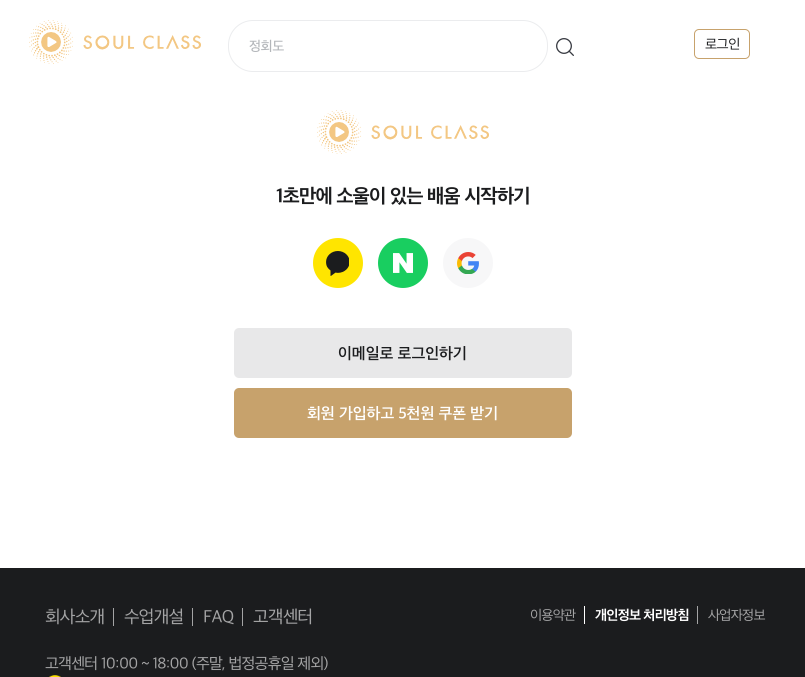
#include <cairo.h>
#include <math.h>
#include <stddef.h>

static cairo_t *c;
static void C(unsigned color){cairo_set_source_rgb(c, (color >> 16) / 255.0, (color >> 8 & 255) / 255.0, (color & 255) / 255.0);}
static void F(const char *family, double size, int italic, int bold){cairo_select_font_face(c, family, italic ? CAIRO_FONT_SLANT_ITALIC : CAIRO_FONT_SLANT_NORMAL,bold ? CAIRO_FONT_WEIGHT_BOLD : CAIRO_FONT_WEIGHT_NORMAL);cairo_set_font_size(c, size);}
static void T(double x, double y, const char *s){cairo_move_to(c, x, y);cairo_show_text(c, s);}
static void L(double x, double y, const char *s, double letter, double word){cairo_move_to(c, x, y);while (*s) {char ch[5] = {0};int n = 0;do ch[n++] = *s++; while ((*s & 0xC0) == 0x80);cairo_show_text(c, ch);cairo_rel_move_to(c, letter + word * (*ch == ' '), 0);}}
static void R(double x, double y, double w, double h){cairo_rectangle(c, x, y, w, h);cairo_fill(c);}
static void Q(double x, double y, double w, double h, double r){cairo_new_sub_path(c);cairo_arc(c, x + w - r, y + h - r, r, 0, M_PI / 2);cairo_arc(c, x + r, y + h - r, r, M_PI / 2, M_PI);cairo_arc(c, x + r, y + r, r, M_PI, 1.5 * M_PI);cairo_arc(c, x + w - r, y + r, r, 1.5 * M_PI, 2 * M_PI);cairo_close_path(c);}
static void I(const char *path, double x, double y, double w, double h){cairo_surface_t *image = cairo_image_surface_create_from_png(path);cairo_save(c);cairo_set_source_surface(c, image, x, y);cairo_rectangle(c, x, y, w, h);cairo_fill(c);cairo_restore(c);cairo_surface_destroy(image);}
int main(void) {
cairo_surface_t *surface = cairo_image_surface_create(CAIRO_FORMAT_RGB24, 805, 677);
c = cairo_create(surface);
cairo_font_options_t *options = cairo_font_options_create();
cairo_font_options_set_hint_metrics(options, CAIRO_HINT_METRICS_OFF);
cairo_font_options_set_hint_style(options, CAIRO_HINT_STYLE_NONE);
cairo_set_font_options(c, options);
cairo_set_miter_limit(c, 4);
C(0xffffff);
cairo_paint(c);
I("1.png",29,20,172,44);
Q(228.5,20.5,319,51,24.5);
C(0xebecee);
cairo_set_line_width(c,1);
cairo_stroke(c);
F("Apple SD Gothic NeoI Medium",14,0,0);
C(0xb3b6ba);
L(249,51,"정회도",-.5,0);
I("2.png",556,38,18,18);
Q(694.5,29.5,55,29,4.5);
C(0xc7a26c);
cairo_stroke(c);
F("Apple SD Gothic NeoI",14,0,0);
C(0x1b1c1e);
L(705,49,"로그인",-.5,0);
I("1.png",317,110,172,44);
F("Apple SD Gothic NeoI",20,0,1);
L(276,203,"1초만에 소울이 있는 배움 시작하기",-.9,0);
C(0xffe500);
cairo_new_path(c);
cairo_arc(c,338,263,25,0,2 * M_PI);
cairo_fill(c);
I("3.png",326,251,23,25);
C(0x19ce60);
cairo_arc(c,403,263,25,0,2 * M_PI);
cairo_fill(c);
I("4.png",393,253,20,20);
C(0xf7f7f8);
cairo_arc(c,468,263,25,0,2 * M_PI);
cairo_fill(c);
I("5.png",457,252,22,22);
C(0xe8e8e9);
Q(234,328,338,50,5);
cairo_fill(c);
F("Apple SD Gothic NeoI SemiBold",16,0,0);
C(0x1b1c1e);
T(338,359,"이메일로 로그인하기");
C(0xc7a26c);
Q(234,388,338,50,5);
cairo_fill(c);
C(0xffffff);
T(307,419,"회원 가입하고 5천원 쿠폰 받기");
C(0x1b1c1e);
R(0,568,805,109);
F("Apple SD Gothic NeoI",18,0,0);
C(0xa4a4a5);
L(45,623,"회사소개",-.75,0);
R(113,608,1,18);
L(124,623,"수업개설",-.75,0);
R(192,608,1,18);
L(203,623,"FAQ",-.75,0);
R(242,608,1,18);
L(253,623,"고객센터",-.75,0);
F("Apple SD Gothic NeoI",14,0,0);
L(530,620,"이용약관",-.75,0);
C(0xffffff);
R(584,606,1,18);
F("Apple SD Gothic NeoI",14,0,1);
L(595,620,"개인정보 처리방침",-.75,0);
C(0xa4a4a5);
R(697,606,1,18);
F("Apple SD Gothic NeoI",14,0,0);
L(708,620,"사업자정보",-.75,0);
F("Apple SD Gothic NeoI",16,0,0);
L(45,669,"고객센터 10:00 ~ 18:00 (주말, 법정공휴일 제외)",-.75,0);
I("6.png",49,675,12,2);
cairo_surface_write_to_png(surface, "o.png");
cairo_font_options_destroy(options);
cairo_destroy(c);
cairo_surface_destroy(surface);
return 0;
}
